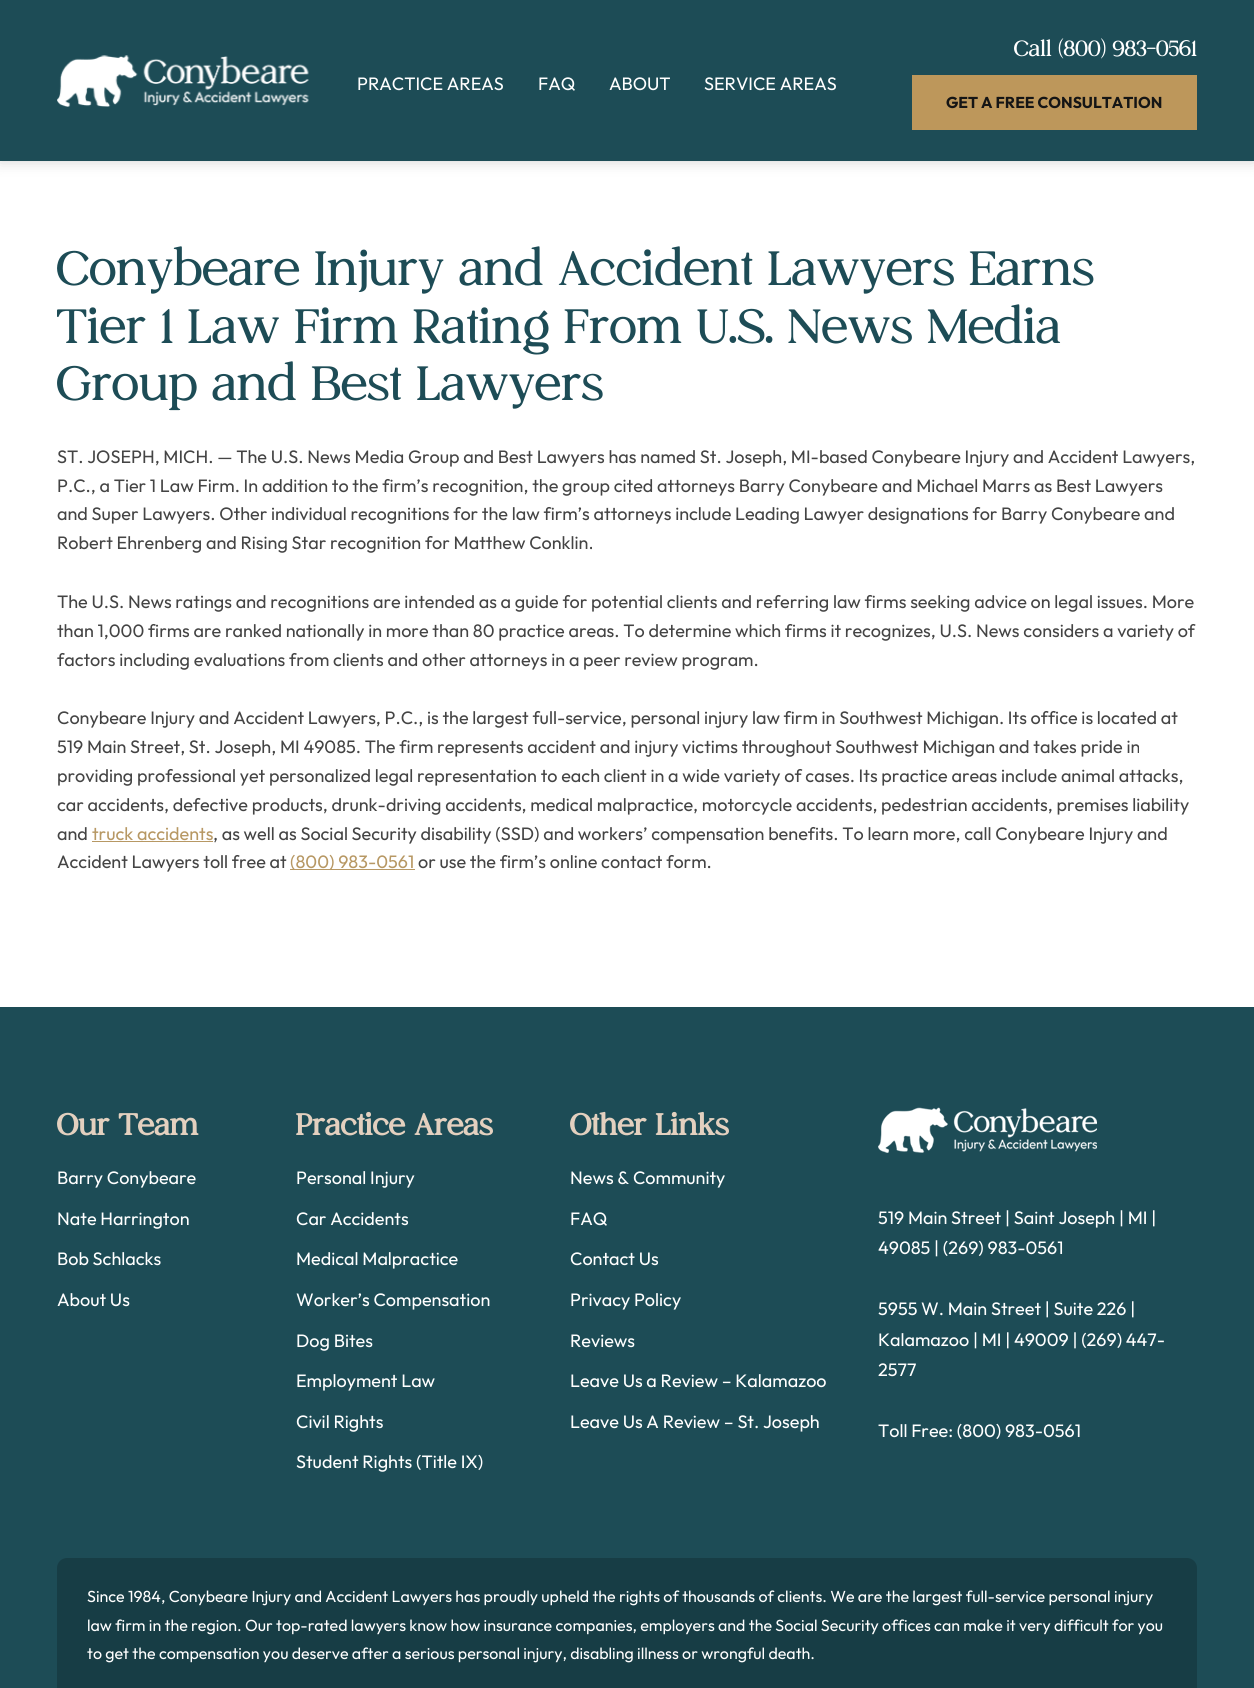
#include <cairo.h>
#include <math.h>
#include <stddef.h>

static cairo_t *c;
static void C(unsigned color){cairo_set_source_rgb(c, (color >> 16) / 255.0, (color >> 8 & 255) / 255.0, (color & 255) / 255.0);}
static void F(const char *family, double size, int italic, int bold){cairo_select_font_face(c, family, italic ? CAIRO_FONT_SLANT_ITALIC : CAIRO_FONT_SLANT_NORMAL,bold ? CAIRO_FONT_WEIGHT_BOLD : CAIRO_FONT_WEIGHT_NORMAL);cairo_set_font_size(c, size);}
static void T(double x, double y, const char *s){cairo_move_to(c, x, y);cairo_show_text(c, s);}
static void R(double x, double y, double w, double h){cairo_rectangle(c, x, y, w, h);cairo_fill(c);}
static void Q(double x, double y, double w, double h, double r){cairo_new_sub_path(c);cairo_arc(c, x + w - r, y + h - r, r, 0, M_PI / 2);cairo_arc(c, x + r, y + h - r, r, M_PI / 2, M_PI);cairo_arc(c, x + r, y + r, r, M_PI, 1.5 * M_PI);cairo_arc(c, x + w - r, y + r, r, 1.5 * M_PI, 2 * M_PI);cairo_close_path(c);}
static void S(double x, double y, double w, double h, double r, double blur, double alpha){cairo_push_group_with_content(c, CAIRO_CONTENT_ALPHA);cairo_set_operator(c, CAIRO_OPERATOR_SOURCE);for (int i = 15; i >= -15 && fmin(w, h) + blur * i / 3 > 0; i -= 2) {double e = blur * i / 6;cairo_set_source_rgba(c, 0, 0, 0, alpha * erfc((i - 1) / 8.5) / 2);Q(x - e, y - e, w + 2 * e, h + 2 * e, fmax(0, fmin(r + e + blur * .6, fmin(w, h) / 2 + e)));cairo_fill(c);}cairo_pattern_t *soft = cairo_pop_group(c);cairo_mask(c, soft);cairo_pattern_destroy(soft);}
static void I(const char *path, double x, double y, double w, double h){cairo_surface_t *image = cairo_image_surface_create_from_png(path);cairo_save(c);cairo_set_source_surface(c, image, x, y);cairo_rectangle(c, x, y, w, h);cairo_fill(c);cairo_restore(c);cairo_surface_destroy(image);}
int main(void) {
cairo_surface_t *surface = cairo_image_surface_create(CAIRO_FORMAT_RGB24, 1254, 1688);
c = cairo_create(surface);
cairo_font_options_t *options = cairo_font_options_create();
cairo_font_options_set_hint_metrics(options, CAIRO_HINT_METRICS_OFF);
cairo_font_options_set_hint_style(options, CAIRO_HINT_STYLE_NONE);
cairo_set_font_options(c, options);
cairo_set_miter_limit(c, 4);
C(0xffffff);
cairo_paint(c);
C(0x151515);
S(0,0,1254,161,0,7.5,.2);
C(0x1d4c56);
R(0,0,1254,161);
I("1.png",57,55,252,52);
F("Outfit",18,0,0);
C(0xffffff);
T(357,90,"PRACTICE AREAS");
T(538,90,"FAQ");
T(609,90,"ABOUT");
T(704,90,"SERVICE AREAS");
F("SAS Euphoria",22,0,0);
T(1014,56,"Call (800) 983-0561");
C(0xbd975b);
R(912,75,285,55);
F("Outfit",15.75,0,1);
C(0x151515);
T(946,108,"GET A FREE CONSULTATION");
F("SAS Euphoria",48,0,0);
C(0x1d4c56);
T(57,285,"Conybeare Injury and Accident Lawyers Earns");
T(57,343,"Tier 1 Law Firm Rating From U.S. News Media");
T(57,400,"Group and Best Lawyers");
F("Outfit",18,0,0);
C(0x444444);
T(57,463,"ST. JOSEPH, MICH. — The U.S. News Media Group and Best Lawyers has named St. Joseph, MI-based Conybeare Injury and Accident Lawyers,");
T(57,492,"P.C., a Tier 1 Law Firm. In addition to the firm’s recognition, the group cited attorneys Barry Conybeare and Michael Marrs as Best Lawyers");
T(57,520,"and Super Lawyers. Other individual recognitions for the law firm’s attorneys include Leading Lawyer designations for Barry Conybeare and");
T(57,549,"Robert Ehrenberg and Rising Star recognition for Matthew Conklin.");
T(57,608,"The U.S. News ratings and recognitions are intended as a guide for potential clients and referring law firms seeking advice on legal issues. More");
T(57,637,"than 1,000 firms are ranked nationally in more than 80 practice areas. To determine which firms it recognizes, U.S. News considers a variety of");
T(57,666,"factors including evaluations from clients and other attorneys in a peer review program.");
T(57,724,"Conybeare Injury and Accident Lawyers, P.C., is the largest full-service, personal injury law firm in Southwest Michigan. Its office is located at");
T(57,753,"519 Main Street, St. Joseph, MI 49085. The firm represents accident and injury victims throughout Southwest Michigan and takes pride in");
T(57,782,"providing professional yet personalized legal representation to each client in a wide variety of cases. Its practice areas include animal attacks,");
T(57,811,"car accidents, defective products, drunk-driving accidents, medical malpractice, motorcycle accidents, pedestrian accidents, premises liability");
T(57,840,"and");
C(0xb79864);
T(92,840,"truck accidents");
R(92,841,121,1);
C(0x444444);
T(213,840,", as well as Social Security disability (SSD) and workers’ compensation benefits. To learn more, call Conybeare Injury and");
T(57,868,"Accident Lawyers toll free at");
C(0xb79864);
R(290,869,125,1);
T(290,868,"(800) 983-0561");
C(0x444444);
T(418,868,"or use the firm’s online contact form.");
C(0x1d4c56);
R(0,1007,1254,681);
F("SAS Euphoria",30,0,1);
C(0xe3d0bf);
T(57,1135,"Our Team");
F("Outfit",18,0,0);
C(0xffffff);
T(57,1184,"Barry Conybeare");
T(57,1225,"Nate Harrington");
T(57,1265,"Bob Schlacks");
T(57,1306,"About Us");
F("SAS Euphoria",30,0,1);
C(0xe3d0bf);
T(296,1135,"Practice Areas");
F("Outfit",18,0,0);
C(0xffffff);
T(296,1184,"Personal Injury");
T(296,1225,"Car Accidents");
T(296,1265,"Medical Malpractice");
T(296,1306,"Worker’s Compensation");
T(296,1347,"Dog Bites");
T(296,1387,"Employment Law");
T(296,1428,"Civil Rights");
T(296,1468,"Student Rights (Title IX)");
F("SAS Euphoria",30,0,1);
C(0xe3d0bf);
T(570,1135,"Other Links");
F("Outfit",18,0,0);
C(0xffffff);
T(570,1184,"News & Community");
T(570,1225,"FAQ");
T(570,1265,"Contact Us");
T(570,1306,"Privacy Policy");
T(570,1347,"Reviews");
T(570,1387,"Leave Us a Review – Kalamazoo");
T(570,1428,"Leave Us A Review – St. Joseph");
I("2.png",878,1107,219,46);
T(878,1224,"519 Main Street | Saint Joseph | MI |");
T(878,1254,"49085 | (269) 983-0561");
T(878,1315,"5955 W. Main Street | Suite 226 |");
T(878,1346,"Kalamazoo | MI | 49009 | (269) 447-");
T(878,1376,"2577");
T(878,1437,"Toll Free: (800) 983-0561");
C(0x173d45);
Q(57,1558,1140,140,10);
cairo_fill(c);
F("Outfit",16,0,0);
C(0xffffff);
T(87,1602,"Since 1984, Conybeare Injury and Accident Lawyers has proudly upheld the rights of thousands of clients. We are the largest full-service personal injury");
T(87,1631,"law firm in the region. Our top-rated lawyers know how insurance companies, employers and the Social Security offices can make it very difficult for you");
T(87,1659,"to get the compensation you deserve after a serious personal injury, disabling illness or wrongful death.");
cairo_surface_write_to_png(surface, "o.png");
cairo_font_options_destroy(options);
cairo_destroy(c);
cairo_surface_destroy(surface);
return 0;
}
